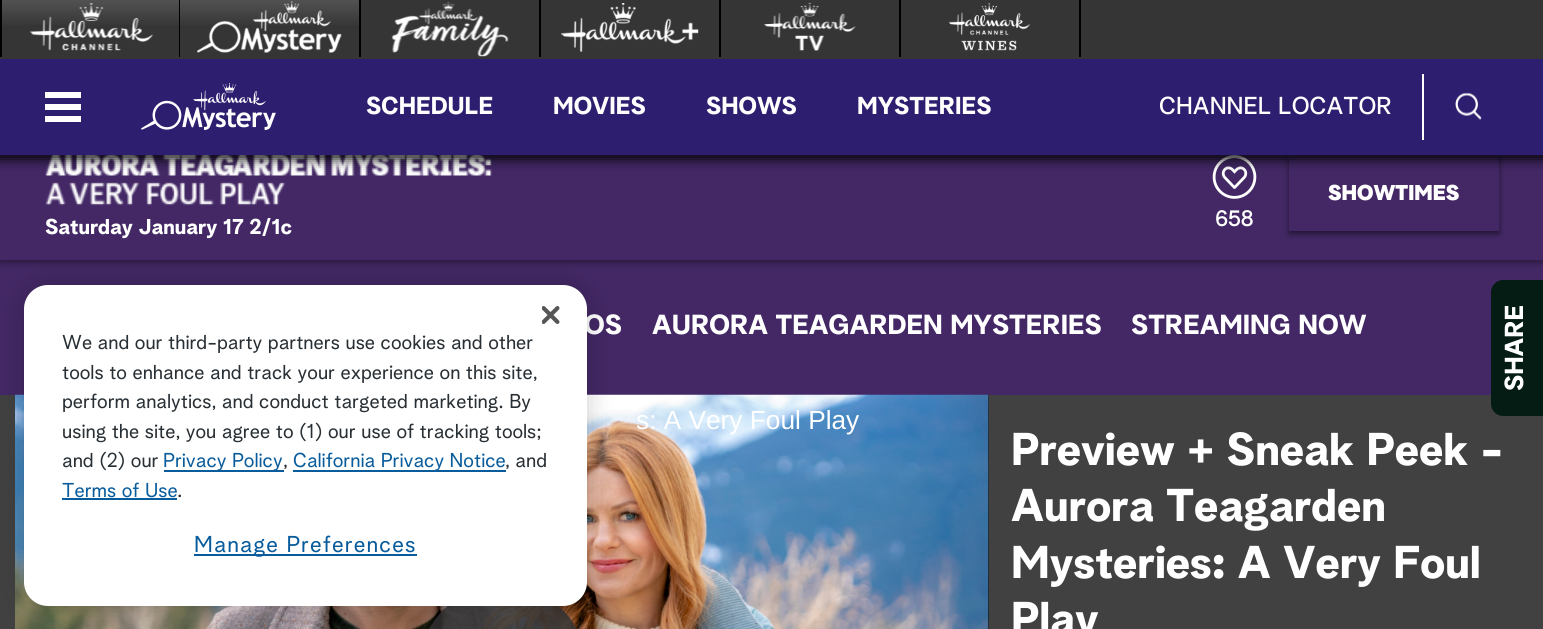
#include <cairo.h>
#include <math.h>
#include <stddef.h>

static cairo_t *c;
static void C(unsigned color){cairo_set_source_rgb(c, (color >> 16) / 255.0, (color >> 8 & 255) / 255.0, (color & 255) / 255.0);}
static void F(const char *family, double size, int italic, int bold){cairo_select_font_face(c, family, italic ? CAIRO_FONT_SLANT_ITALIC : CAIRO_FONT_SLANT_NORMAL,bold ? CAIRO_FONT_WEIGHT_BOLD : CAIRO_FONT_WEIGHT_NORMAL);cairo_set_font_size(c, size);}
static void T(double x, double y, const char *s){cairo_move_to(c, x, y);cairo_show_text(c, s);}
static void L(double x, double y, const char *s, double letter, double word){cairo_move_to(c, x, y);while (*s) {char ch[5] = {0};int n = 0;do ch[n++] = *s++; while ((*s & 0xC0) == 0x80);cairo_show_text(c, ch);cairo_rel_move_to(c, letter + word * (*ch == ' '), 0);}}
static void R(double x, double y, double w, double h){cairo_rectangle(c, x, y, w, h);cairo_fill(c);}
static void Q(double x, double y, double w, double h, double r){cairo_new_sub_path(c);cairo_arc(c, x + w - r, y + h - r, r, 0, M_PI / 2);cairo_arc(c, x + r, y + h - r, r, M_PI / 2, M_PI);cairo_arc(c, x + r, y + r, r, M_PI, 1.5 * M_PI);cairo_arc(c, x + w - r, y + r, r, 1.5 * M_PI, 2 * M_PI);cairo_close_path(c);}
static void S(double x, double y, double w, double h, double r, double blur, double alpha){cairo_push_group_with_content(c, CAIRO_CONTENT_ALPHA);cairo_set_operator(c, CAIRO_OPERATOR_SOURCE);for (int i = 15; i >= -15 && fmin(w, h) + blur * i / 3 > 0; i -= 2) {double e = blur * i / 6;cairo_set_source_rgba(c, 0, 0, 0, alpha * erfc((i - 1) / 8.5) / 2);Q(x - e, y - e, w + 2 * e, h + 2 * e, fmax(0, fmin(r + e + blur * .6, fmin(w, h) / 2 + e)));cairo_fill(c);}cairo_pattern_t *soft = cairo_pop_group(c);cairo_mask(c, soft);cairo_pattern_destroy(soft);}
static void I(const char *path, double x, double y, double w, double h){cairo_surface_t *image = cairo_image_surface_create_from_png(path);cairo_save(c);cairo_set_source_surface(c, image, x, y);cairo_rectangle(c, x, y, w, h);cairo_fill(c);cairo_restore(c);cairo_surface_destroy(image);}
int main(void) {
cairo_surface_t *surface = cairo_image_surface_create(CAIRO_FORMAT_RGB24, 1543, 629);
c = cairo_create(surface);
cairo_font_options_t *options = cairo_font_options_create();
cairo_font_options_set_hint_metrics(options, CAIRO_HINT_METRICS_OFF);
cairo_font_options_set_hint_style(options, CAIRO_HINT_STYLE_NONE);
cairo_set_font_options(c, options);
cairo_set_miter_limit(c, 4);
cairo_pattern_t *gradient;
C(0x414141);
cairo_paint(c);
C(0x353535);
R(0,0,1543,59);
gradient = cairo_pattern_create_linear(90,-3,90,57);
cairo_pattern_add_color_stop_rgba(gradient,0,0.333,0.333,0.333,1);
cairo_pattern_add_color_stop_rgba(gradient,.5,0.208,0.208,0.208,1);
cairo_set_source(c,gradient);
cairo_pattern_destroy(gradient);
R(2,0,177,25);
C(0x000000);
R(179,0,1,57);
R(0,0,2,57);
I("1.png",29,3,124,48);
gradient = cairo_pattern_create_linear(269,-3,269,57);
cairo_pattern_add_color_stop_rgba(gradient,0,0.333,0.333,0.333,1);
cairo_pattern_add_color_stop_rgba(gradient,.5,0.208,0.208,0.208,1);
cairo_set_source(c,gradient);
cairo_pattern_destroy(gradient);
R(180,0,179,25);
C(0x000000);
R(359,0,2,57);
I("2.png",197,1,145,52);
R(539,0,2,57);
I("3.png",391,2,118,55);
R(719,0,2,57);
I("4.png",561,3,138,49);
R(899,0,2,57);
I("5.png",763,2,93,49);
R(1079,0,2,57);
I("6.png",948,3,82,48);
C(0x432865);
R(0,155,1543,240);
cairo_save(c);
cairo_set_fill_rule(c,CAIRO_FILL_RULE_EVEN_ODD);
cairo_new_path(c);
cairo_move_to(c,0,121);
cairo_line_to(c,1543,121);
cairo_line_to(c,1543,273);
cairo_line_to(c,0,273);
cairo_close_path(c);
cairo_move_to(c,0,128);
cairo_line_to(c,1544,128);
cairo_line_to(c,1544,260);
cairo_line_to(c,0,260);
cairo_close_path(c);
cairo_clip(c);
C(0x000000);
S(0,131,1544,132,0,3,.37);
cairo_restore(c);
C(0x000000);
S(1289,159,210,75,0,3,.5);
C(0x432865);
R(1289,156,210,75);
I("9.png",45,155,447,51);
I("10.png",1212,155,45,44);
C(0x000000);
S(-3,153,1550,6,0,6,1);
C(0x2d1e6f);
R(0,59,1543,96);
C(0xffffff);
R(45,104,36,6);
R(45,92,36,6);
R(45,116,36,6);
I("7.png",141,83,135,47);
F("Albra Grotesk",24,0,1);
T(366,114,"SCHEDULE");
T(553,114,"MOVIES");
T(706,114,"SHOWS");
T(857,114,"MYSTERIES");
R(1422,74,2,66);
F("Albra Grotesk Medium",24,0,0);
T(1159,114,"CHANNEL LOCATOR");
I("8.png",1455,92,27,28);
F("Albra Grotesk Black",21,0,0);
T(1328,200,"SHOWTIMES");
F("Albra Grotesk",21,0,1);
T(45,234,"Saturday January 17 2/1c");
F("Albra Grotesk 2",21,0,1);
T(1215,226,"658");
F("Albra Grotesk",27,0,1);
T(584,334,"OS");
T(652,334,"AURORA TEAGARDEN MYSTERIES");
T(1131,334,"STREAMING NOW");
C(0x051c14);
cairo_new_path(c);
cairo_move_to(c,1491,404);
cairo_line_to(c,1491,292);
cairo_curve_to(c,1491,286,1496,280,1503,280);
cairo_line_to(c,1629,280);
cairo_curve_to(c,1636,280,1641,286,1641,292);
cairo_line_to(c,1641,404);
cairo_curve_to(c,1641,410,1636,416,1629,416);
cairo_line_to(c,1503,416);
cairo_curve_to(c,1496,416,1491,410,1491,404);
cairo_close_path(c);
cairo_fill(c);
F("Albra Grotesk",25.5,0,1);
C(0xffffff);
cairo_save(c);
cairo_translate(c,1523,391);
cairo_rotate(c,-90 * M_PI / 180);
T(0,0,"SHARE");
cairo_restore(c);
gradient = cairo_pattern_create_linear(502,395,502,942);
cairo_pattern_add_color_stop_rgba(gradient,0,0.129,0.129,0.129,1);
cairo_pattern_add_color_stop_rgba(gradient,1,0.035,0.035,0.035,1);
cairo_set_source(c,gradient);
cairo_pattern_destroy(gradient);
R(988,395,1,234);
I("12.png",15,394,974,235);
cairo_set_source_rgba(c,0.2,0.2,0.2,0.85);
Q(419,585,168,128,84);
cairo_fill(c);
C(0x000000);
S(24,285,563,321,24,13.5,.2);
C(0xffffff);
Q(24,285,563,321,24);
cairo_fill(c);
I("11.png",542,306,18,18);
F("Albra Grotesk",19.7,0,0);
C(0x293035);
T(62,349,"We and our third-party partners use cookies and other");
T(62,379,"tools to enhance and track your experience on this site,");
T(62,408,"perform analytics, and conduct targeted marketing. By");
T(62,438,"using the site, you agree to (1) our use of tracking tools;");
T(62,467,"and (2) our");
C(0x095c9c);
R(164,470,120,2);
T(163,467,"Privacy Policy");
C(0x293035);
T(283,467,",");
C(0x095c9c);
R(293,470,213,2);
T(293,467,"California Privacy Notice");
C(0x293035);
T(505,467,", and");
C(0x095c9c);
T(62,497,"Terms of Use");
R(62,498,115,2);
C(0x293035);
T(177,497,".");
C(0x095c9c);
R(194,554,223,2);
F("Albra Grotesk",22.5,0,0);
L(194,552,"Manage Preferences",1.1,0);
F("Liberation Sans",26.25,0,0);
C(0xffffff);
T(636,429,"s: A Very Foul Play");
F("Albra Grotesk",45,0,1);
T(1011,465,"Preview + Sneak Peek -");
T(1011,521,"Aurora Teagarden");
T(1011,578,"Mysteries: A Very Foul");
T(1011,634,"Play");
cairo_surface_write_to_png(surface, "o.png");
cairo_font_options_destroy(options);
cairo_destroy(c);
cairo_surface_destroy(surface);
return 0;
}
